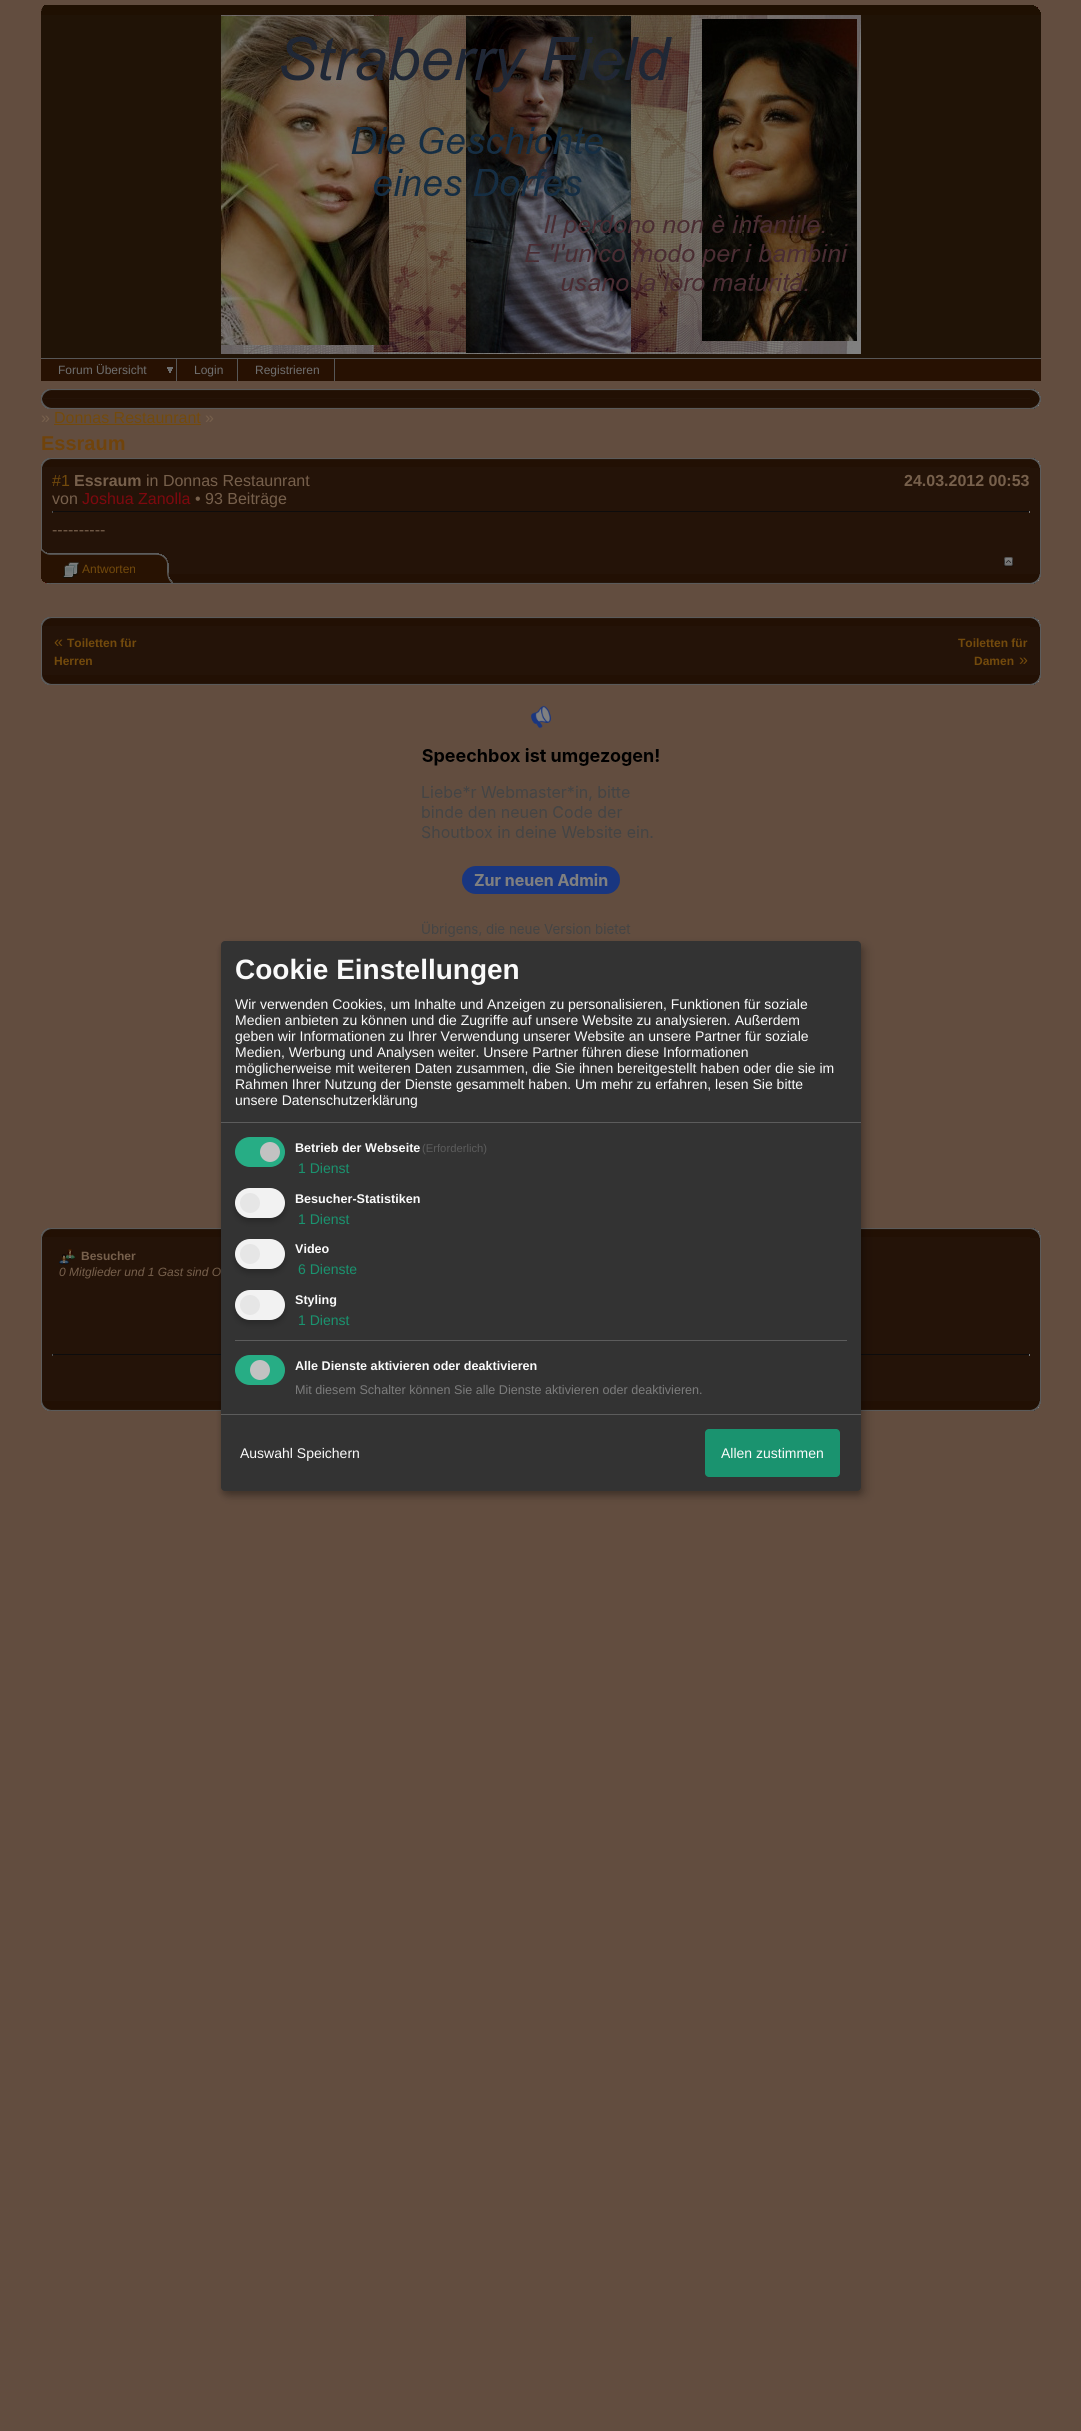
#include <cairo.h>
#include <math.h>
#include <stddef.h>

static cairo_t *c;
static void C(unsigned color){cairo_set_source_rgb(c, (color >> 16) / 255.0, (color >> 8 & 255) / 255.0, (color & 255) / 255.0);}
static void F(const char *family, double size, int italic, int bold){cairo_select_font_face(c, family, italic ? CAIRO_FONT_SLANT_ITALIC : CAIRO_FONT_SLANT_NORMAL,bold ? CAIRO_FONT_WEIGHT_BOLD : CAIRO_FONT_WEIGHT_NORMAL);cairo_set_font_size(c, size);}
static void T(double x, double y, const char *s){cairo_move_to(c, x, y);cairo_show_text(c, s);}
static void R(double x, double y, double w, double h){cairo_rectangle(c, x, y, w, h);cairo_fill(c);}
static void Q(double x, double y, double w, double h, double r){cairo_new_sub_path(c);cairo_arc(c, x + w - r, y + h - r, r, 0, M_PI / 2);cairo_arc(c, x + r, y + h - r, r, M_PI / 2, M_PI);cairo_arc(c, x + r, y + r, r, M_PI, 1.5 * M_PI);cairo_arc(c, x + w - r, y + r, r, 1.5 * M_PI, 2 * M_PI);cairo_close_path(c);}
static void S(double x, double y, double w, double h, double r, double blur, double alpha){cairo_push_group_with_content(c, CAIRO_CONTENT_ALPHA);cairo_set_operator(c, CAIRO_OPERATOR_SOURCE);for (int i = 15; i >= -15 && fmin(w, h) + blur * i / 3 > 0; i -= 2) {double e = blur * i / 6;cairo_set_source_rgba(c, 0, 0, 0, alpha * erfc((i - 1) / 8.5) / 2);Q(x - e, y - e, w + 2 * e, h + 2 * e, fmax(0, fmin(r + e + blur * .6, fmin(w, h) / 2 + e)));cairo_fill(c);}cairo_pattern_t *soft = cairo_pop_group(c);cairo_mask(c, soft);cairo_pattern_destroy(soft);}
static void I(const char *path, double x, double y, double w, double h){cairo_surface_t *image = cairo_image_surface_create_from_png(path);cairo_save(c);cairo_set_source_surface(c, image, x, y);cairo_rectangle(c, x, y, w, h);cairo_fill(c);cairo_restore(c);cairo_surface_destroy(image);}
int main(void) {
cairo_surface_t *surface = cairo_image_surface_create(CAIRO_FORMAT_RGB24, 1081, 2431);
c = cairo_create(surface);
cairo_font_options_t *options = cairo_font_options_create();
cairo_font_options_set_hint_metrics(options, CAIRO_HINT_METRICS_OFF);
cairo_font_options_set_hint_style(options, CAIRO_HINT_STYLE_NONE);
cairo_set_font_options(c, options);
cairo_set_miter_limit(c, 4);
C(0x624d3f);
cairo_paint(c);
I("1.png",41,5,989,10);
I("2.png",1030,5,11,10);
C(0x201306);
R(41,15,1000,343);
I("3.png",221,15,640,339);
C(0x271102);
R(41,359,1000,22);
C(0x575757);
R(41,358,1000,1);
R(176,359,1,22);
F("Liberation Sans",12,0,0);
C(0x6f6f6f);
T(58,374,"Forum Übersicht");
I("4.png",167,367,6,6);
C(0x575757);
R(237,359,1,22);
C(0x6f6f6f);
T(194,374,"Login");
C(0x575757);
R(334,359,1,22);
C(0x6f6f6f);
T(255,374,"Registrieren");
I("5.png",41,389,989,9);
I("6.png",1030,389,11,10);
C(0x241308);
R(41,398,989,1);
C(0x5c5c5c);
R(41,398,1,2);
I("7.png",41,399,989,10);
I("8.png",1030,399,11,10);
F("Liberation Sans",16,0,0);
C(0x77604c);
T(41,423,"»");
C(0x734a0c);
T(54,423,"Donnas Restaunrant");
R(54,424,147,1);
C(0x77604c);
T(205,423,"»");
F("Liberation Sans",20,0,1);
C(0x70430b);
T(41,450,"Essraum");
I("5.png",41,458,989,9);
C(0x241308);
R(42,467,998,107);
C(0x5c5c5c);
R(1040,467,1,108);
I("6.png",1030,458,11,10);
R(41,467,1,82);
F("Liberation Sans",16,0,0);
C(0x734a0c);
T(52,486,"#1");
F("Liberation Sans",16,0,1);
C(0x77604c);
T(74,486,"Essraum");
F("Liberation Sans",16,0,0);
T(146,486,"in Donnas Restaunrant");
F("Liberation Sans",16,0,1);
T(904,486,"24.03.2012 00:53");
F("Liberation Sans",16,0,0);
T(52,504,"von");
C(0x7e080e);
T(82,504,"Joshua Zanolla");
C(0x77604c);
T(195,504,"• 93 Beiträge");
C(0x0d0c0d);
R(52,511,978,1);
C(0x777777);
R(1029,511,1,2);
C(0x505050);
R(52,511,1,2);
C(0x77604c);
T(52,535,"----------");
I("9.png",1003,557,11,10);
I("12.png",47,574,983,10);
I("10.png",41,549,132,34);
I("11.png",63,562,16,16);
F("Liberation Sans",12,0,0);
C(0x734a0c);
T(82,573,"Antworten");
I("8.png",1030,574,11,10);
I("5.png",41,617,989,9);
C(0x241308);
R(42,626,998,49);
C(0x5c5c5c);
R(1040,626,1,50);
I("6.png",1030,617,11,10);
R(41,626,1,50);
F("Liberation Sans",16,0,0);
C(0x734a0c);
T(54,647,"«");
F("Liberation Sans",12,0,1);
T(67,647,"Toiletten für");
T(54,665,"Herren");
T(958,647,"Toiletten für");
T(974,665,"Damen");
F("Liberation Sans",16,0,0);
T(1019,665,"»");
I("7.png",41,675,989,10);
I("8.png",1030,675,11,10);
I("13.png",422,705,237,232);
I("5.png",41,1228,989,9);
C(0x241308);
R(42,1237,998,164);
C(0x5c5c5c);
R(1040,1237,1,165);
I("6.png",1030,1228,11,10);
R(41,1237,1,165);
I("14.png",59,1249,16,16);
F("Liberation Sans",12,0,1);
C(0x77604c);
T(81,1260,"Besucher");
F("Liberation Sans",12,1,0);
T(59,1276,"0 Mitglieder und 1 Gast sind O");
C(0x0d0c0d);
R(52,1354,978,1);
C(0x777777);
R(1029,1354,1,2);
C(0x505050);
R(52,1354,1,2);
I("7.png",41,1401,989,10);
I("8.png",1030,1401,11,10);
C(0x000000);
S(226,946,640,550,4,5,.19);
S(221,945,640,550,4,3,.2);
C(0x333333);
Q(221,941,640,550,4);
cairo_fill(c);
C(0x5c5c5c);
R(221,1122,640,1);
F("Liberation Sans",28,0,1);
C(0xfafafa);
T(235,979,"Cookie Einstellungen");
F("Liberation Sans",14,0,0);
T(235,1009,"Wir verwenden Cookies, um Inhalte und Anzeigen zu personalisieren, Funktionen für soziale");
T(235,1025,"Medien anbieten zu können und die Zugriffe auf unsere Website zu analysieren. Außerdem");
T(235,1041,"geben wir Informationen zu Ihrer Verwendung unserer Website an unsere Partner für soziale");
T(235,1057,"Medien, Werbung und Analysen weiter. Unsere Partner führen diese Informationen");
T(235,1073,"möglicherweise mit weiteren Daten zusammen, die Sie ihnen bereitgestellt haben oder die sie im");
T(235,1089,"Rahmen Ihrer Nutzung der Dienste gesammelt haben. Um mehr zu erfahren, lesen Sie bitte");
T(235,1105,"unsere Datenschutzerklärung");
C(0x27ad85);
Q(235,1137,50,30,15);
cairo_fill(c);
C(0xc2c2c2);
cairo_arc(c,270,1152,10,0,2 * M_PI);
cairo_fill(c);
F("Liberation Sans",12.6,0,1);
C(0xfafafa);
T(295,1152,"Betrieb der Webseite");
F("Liberation Sans",11.25,0,0);
C(0x5c5c5c);
T(422,1152,"(Erforderlich)");
F("Liberation Sans",14,0,0);
C(0x1a936f);
T(298,1173,"1 Dienst");
C(0x000000);
S(235,1192,50,30,15,3,.2);
C(0xf2f2f2);
Q(235,1188,50,30,15);
cairo_fill(c);
C(0xe6e6e6);
cairo_arc(c,250,1203,10,0,2 * M_PI);
cairo_fill(c);
F("Liberation Sans",12.6,0,1);
C(0xfafafa);
T(295,1203,"Besucher-Statistiken");
F("Liberation Sans",14,0,0);
C(0x1a936f);
T(298,1224,"1 Dienst");
C(0x000000);
S(235,1243,50,30,15,3,.2);
C(0xf2f2f2);
Q(235,1239,50,30,15);
cairo_fill(c);
C(0xe6e6e6);
cairo_arc(c,250,1254,10,0,2 * M_PI);
cairo_fill(c);
F("Liberation Sans",12.6,0,1);
C(0xfafafa);
T(295,1253,"Video");
F("Liberation Sans",14,0,0);
C(0x1a936f);
T(298,1274,"6 Dienste");
C(0x000000);
S(235,1294,50,30,15,3,.2);
C(0xf2f2f2);
Q(235,1290,50,30,15);
cairo_fill(c);
C(0xe6e6e6);
cairo_arc(c,250,1305,10,0,2 * M_PI);
cairo_fill(c);
F("Liberation Sans",12.6,0,1);
C(0xfafafa);
T(295,1304,"Styling");
F("Liberation Sans",14,0,0);
C(0x1a936f);
T(298,1325,"1 Dienst");
C(0x5c5c5c);
R(235,1340,612,1);
C(0x27ad85);
Q(235,1355,50,30,15);
cairo_fill(c);
C(0xc2c2c2);
cairo_arc(c,260,1370,10,0,2 * M_PI);
cairo_fill(c);
F("Liberation Sans",12.6,0,1);
C(0xfafafa);
T(295,1370,"Alle Dienste aktivieren oder deaktivieren");
F("Liberation Sans",12.6,0,0);
C(0x7c7c7c);
T(295,1394,"Mit diesem Schalter können Sie alle Dienste aktivieren oder deaktivieren.");
C(0x5c5c5c);
R(221,1414,640,1);
F("Liberation Sans",14,0,0);
C(0xfafafa);
T(240,1458,"Auswahl Speichern");
C(0x1a936f);
Q(705,1429,135,48,4);
cairo_fill(c);
C(0xfafafa);
T(721,1458,"Allen zustimmen");
cairo_surface_write_to_png(surface, "o.png");
cairo_font_options_destroy(options);
cairo_destroy(c);
cairo_surface_destroy(surface);
return 0;
}
